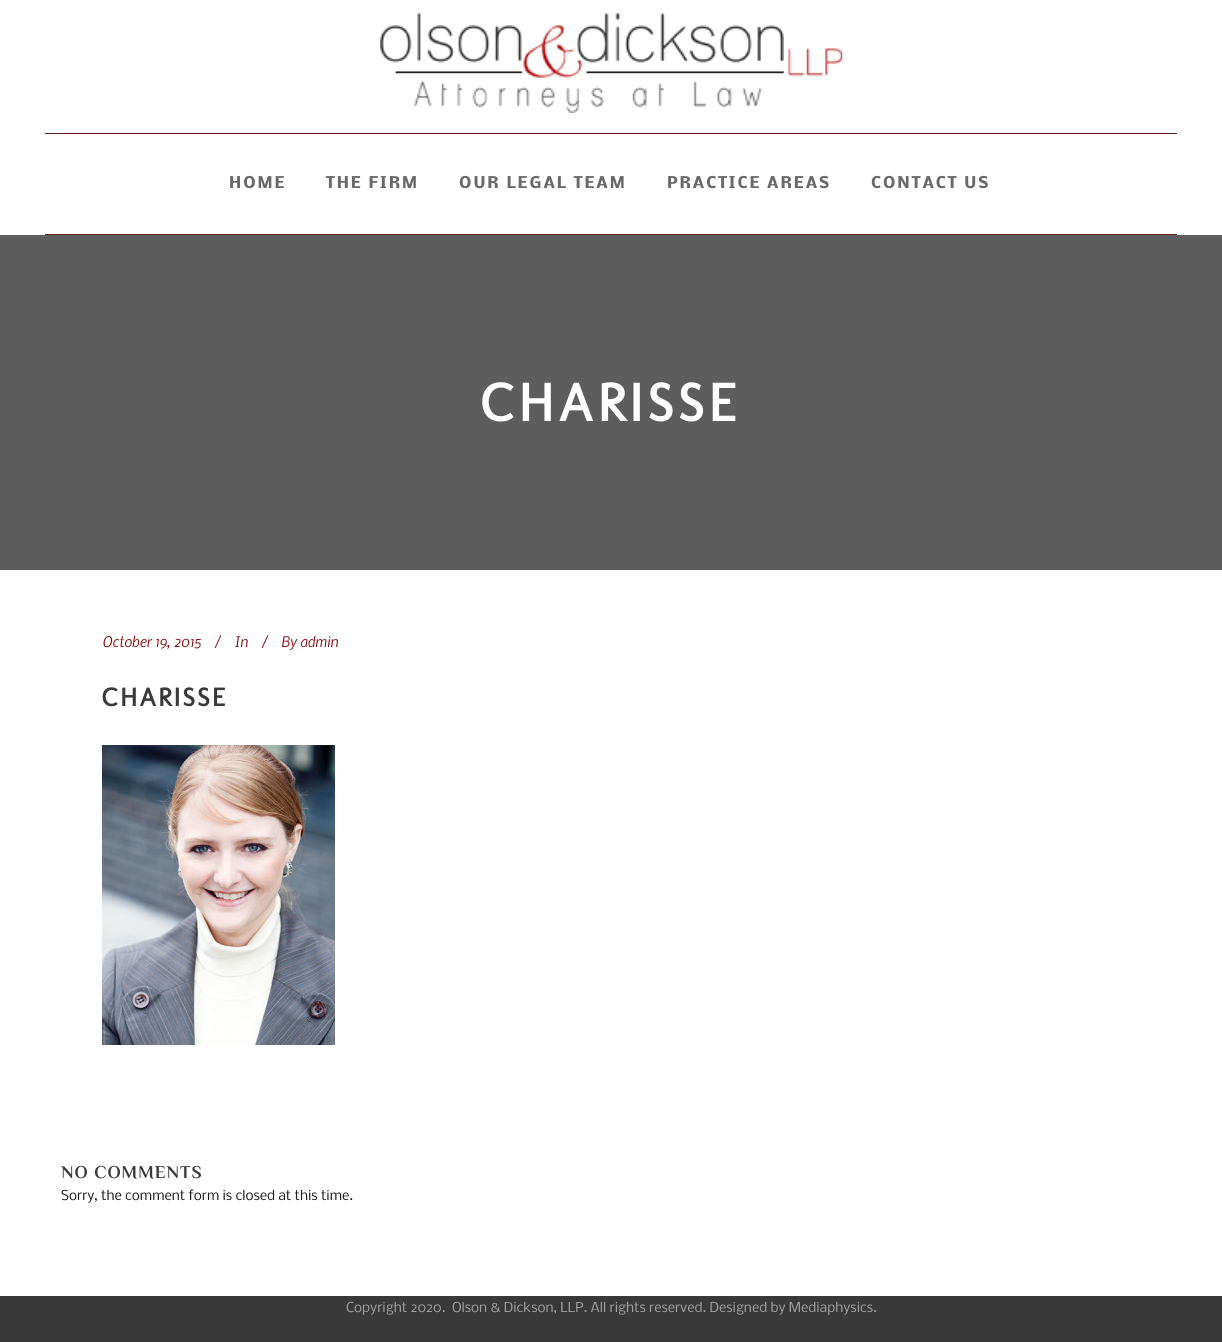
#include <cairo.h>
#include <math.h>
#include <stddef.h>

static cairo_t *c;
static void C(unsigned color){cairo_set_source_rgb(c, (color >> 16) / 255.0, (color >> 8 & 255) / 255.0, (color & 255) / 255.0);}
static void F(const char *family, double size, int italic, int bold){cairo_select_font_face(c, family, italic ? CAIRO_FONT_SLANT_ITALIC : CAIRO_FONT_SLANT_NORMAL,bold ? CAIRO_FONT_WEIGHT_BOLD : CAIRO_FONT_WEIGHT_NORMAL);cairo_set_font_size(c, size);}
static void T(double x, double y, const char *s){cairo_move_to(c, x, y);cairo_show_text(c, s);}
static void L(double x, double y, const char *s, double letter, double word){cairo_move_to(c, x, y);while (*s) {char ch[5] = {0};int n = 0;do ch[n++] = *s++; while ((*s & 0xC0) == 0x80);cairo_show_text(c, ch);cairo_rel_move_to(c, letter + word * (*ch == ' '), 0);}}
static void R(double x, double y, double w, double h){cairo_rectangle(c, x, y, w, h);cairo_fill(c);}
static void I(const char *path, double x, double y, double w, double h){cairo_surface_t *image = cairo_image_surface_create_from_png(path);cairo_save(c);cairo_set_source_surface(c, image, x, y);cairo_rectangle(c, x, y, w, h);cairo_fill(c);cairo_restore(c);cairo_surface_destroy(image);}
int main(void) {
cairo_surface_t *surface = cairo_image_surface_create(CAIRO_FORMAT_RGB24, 1222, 1342);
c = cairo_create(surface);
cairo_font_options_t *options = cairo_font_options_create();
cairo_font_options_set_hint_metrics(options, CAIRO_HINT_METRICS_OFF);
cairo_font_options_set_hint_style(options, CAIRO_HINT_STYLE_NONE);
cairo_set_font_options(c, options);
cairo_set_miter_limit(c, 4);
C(0xffffff);
cairo_paint(c);
I("1.png",380,13,463,100);
C(0x5e2115);
R(45,133,1132,1);
R(45,234,1132,1);
F("Nobile",15,0,1);
C(0x696969);
L(229,188,"HOME",2,0);
L(326,188,"THE FIRM",2,0);
L(459,188,"OUR LEGAL TEAM",2,0);
L(667,188,"PRACTICE AREAS",2,0);
L(871,188,"CONTACT US",2,0);
C(0x5d5d5d);
R(0,235,1222,335);
F("Molengo",54,0,1);
C(0xffffff);
L(481,421,"CHARISSE",4,0);
F("Nobile",14,1,0);
C(0x8b0c0d);
T(102,647,"October 19, 2015");
T(214,647,"/");
T(234,647,"In");
T(261,647,"/");
T(281,647,"By admin");
F("Molengo",26,0,1);
C(0x393939);
L(102,706,"CHARISSE",2,0);
I("2.png",102,745,233,300);
F("Philosopher",18,0,1);
L(61,1178,"NO COMMENTS",1,0);
F("Nobile",13,0,0);
C(0x1c1c1c);
T(61,1200,"Sorry, the comment form is closed at this time.");
C(0x393939);
R(0,1296,1222,46);
C(0xa2a2a2);
T(346,1312,"Copyright 2020.  Olson & Dickson, LLP. All rights reserved. Designed by Mediaphysics.");
cairo_surface_write_to_png(surface, "o.png");
cairo_font_options_destroy(options);
cairo_destroy(c);
cairo_surface_destroy(surface);
return 0;
}
